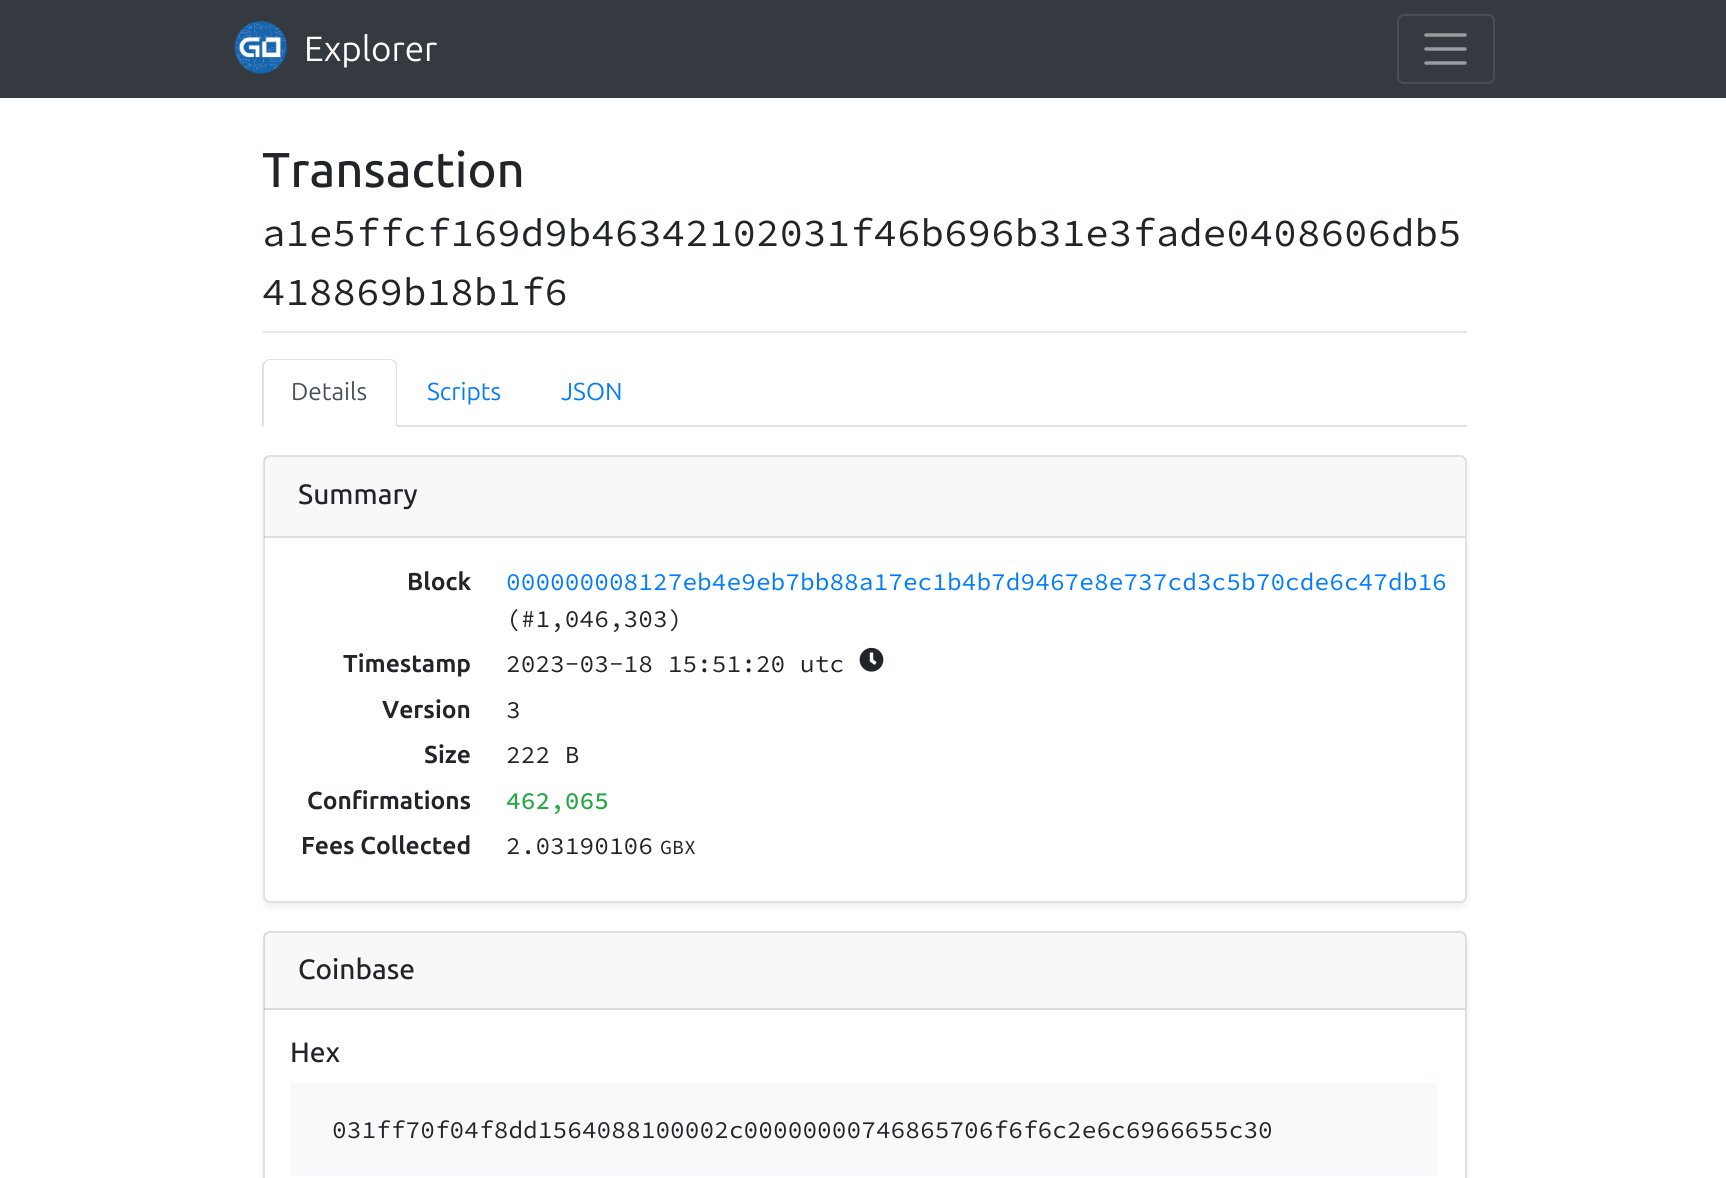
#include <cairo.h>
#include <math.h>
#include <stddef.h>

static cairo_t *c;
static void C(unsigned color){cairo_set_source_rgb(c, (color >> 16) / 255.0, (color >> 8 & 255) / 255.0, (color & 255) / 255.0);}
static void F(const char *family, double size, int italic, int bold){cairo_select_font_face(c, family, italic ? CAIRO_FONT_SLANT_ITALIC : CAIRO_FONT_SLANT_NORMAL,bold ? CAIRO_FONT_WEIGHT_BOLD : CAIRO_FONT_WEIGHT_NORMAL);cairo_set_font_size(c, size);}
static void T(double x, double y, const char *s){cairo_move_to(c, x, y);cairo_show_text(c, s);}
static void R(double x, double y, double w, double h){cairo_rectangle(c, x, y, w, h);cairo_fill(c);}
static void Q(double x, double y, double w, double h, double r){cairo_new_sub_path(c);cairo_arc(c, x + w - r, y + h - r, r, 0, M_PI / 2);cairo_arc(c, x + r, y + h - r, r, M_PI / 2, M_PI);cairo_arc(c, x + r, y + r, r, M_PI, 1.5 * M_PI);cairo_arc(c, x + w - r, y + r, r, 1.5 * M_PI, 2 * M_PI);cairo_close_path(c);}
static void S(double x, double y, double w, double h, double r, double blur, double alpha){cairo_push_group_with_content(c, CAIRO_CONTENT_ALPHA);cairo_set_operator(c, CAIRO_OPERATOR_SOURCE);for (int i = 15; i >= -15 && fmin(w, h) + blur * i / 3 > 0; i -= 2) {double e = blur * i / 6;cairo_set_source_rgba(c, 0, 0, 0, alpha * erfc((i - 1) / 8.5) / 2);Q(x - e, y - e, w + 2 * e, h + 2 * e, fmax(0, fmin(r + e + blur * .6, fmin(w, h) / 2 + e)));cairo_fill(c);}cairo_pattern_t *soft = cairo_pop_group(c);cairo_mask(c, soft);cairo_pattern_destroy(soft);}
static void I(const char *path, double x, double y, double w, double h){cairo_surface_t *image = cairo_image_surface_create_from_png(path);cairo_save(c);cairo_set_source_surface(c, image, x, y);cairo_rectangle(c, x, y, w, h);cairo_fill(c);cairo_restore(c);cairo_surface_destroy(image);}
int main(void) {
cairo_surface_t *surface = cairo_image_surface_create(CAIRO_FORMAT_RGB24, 1726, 1178);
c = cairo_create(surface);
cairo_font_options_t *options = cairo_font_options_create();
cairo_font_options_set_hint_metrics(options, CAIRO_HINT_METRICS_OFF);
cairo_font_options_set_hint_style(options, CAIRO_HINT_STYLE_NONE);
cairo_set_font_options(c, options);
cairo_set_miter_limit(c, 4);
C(0x343a40);
cairo_paint(c);
I("1.png",234,21,53,53);
F("Ubuntu",35,0,0);
C(0xffffff);
T(304,61,"Explorer");
Q(1398,15,96,68,6);
C(0x484e53);
cairo_stroke(c);
cairo_new_path(c);
cairo_move_to(c,1426,35);
cairo_line_to(c,1465,35);
cairo_move_to(c,1426,49);
cairo_line_to(c,1465,49);
cairo_move_to(c,1426,63);
cairo_line_to(c,1465,63);
C(0x9a9da0);
cairo_set_line_width(c,3.5);
cairo_set_line_cap(c,CAIRO_LINE_CAP_ROUND);
cairo_stroke(c);
C(0xffffff);
R(0,98,1726,1080);
F("Ubuntu Medium",49,0,0);
C(0x212529);
T(262,187,"Transaction");
F("Source Code Pro",39.2,0,0);
T(262,246,"a1e5ffcf169d9b46342102031f46b696b31e3fade0408606db5");
T(262,305,"418869b18b1f6");
C(0xe6e6e6);
R(263,331,1204,2);
C(0xdee2e6);
R(397,425,1070,2);
cairo_new_path(c);
cairo_move_to(c,270,359);
cairo_curve_to(c,268,359,266,360,265,361);
cairo_line_to(c,266,362);
cairo_line_to(c,269,360);
cairo_line_to(c,391,360);
cairo_line_to(c,394,362);
cairo_line_to(c,395,361);
cairo_curve_to(c,394,360,392,359,390,359);
cairo_close_path(c);
cairo_fill(c);
cairo_new_path(c);
cairo_move_to(c,397,427);
cairo_line_to(c,397,366);
cairo_curve_to(c,397,364,396,362,395,361);
cairo_line_to(c,394,362);
cairo_curve_to(c,395,363,396,364,396,366);
cairo_line_to(c,396,425);
cairo_line_to(c,395,425);
cairo_close_path(c);
cairo_fill(c);
C(0xffffff);
cairo_new_path(c);
cairo_move_to(c,262,427);
cairo_line_to(c,397,427);
cairo_line_to(c,395,425);
cairo_line_to(c,264,425);
cairo_close_path(c);
cairo_fill(c);
C(0xdee2e6);
cairo_new_path(c);
cairo_move_to(c,262,427);
cairo_line_to(c,264,425);
cairo_line_to(c,264,366);
cairo_curve_to(c,264,365,265,363,266,362);
cairo_line_to(c,265,361);
cairo_line_to(c,262,364);
cairo_close_path(c);
cairo_fill(c);
F("Ubuntu",24.5,0,0);
C(0x495057);
T(291,400,"Details");
C(0x007bff);
T(427,400,"Scripts");
T(561,400,"JSON");
C(0x000000);
S(263,459,1204,448,7,3.5,.07);
C(0xffffff);
Q(263,455,1204,448,7);
cairo_fill(c);
Q(264,456,1202,446,6);
cairo_set_source_rgba(c,0,0,0,0.12);
cairo_set_line_width(c,2);
cairo_set_line_cap(c,CAIRO_LINE_CAP_BUTT);
cairo_stroke(c);
cairo_set_source_rgba(c,0,0,0,0.03);
R(264,457,1201,80);
cairo_set_source_rgba(c,0,0,0,0.12);
R(264,536,1201,2);
F("Ubuntu Medium",28,0,0);
C(0x212529);
T(298,504,"Summary");
F("Ubuntu",24.5,0,1);
T(407,590,"Block");
F("Source Code Pro",24.5,0,0);
C(0x007bff);
T(506,590,"000000008127eb4e9eb7bb88a17ec1b4b7d9467e8e737cd3c5b70cde6c47db16");
C(0x212529);
T(506,627,"(#1,046,303)");
F("Ubuntu",24.5,0,1);
T(343,672,"Timestamp");
F("Source Code Pro",24.5,0,0);
T(506,672,"2023-03-18 15:51:20 utc");
I("2.png",859,647,25,25);
F("Ubuntu",24.5,0,1);
T(382,718,"Version");
F("Source Code Pro",24.5,0,0);
T(506,718,"3");
F("Ubuntu",24.5,0,1);
T(424,763,"Size");
F("Source Code Pro",24.5,0,0);
T(506,763,"222 B");
F("Ubuntu",24.5,0,1);
T(307,809,"Confirmations");
F("Source Code Pro Medium",24.5,0,0);
C(0x28a745);
T(506,809,"462,065");
F("Ubuntu",24.5,0,1);
C(0x212529);
T(301,854,"Fees Collected");
F("Source Code Pro",24.5,0,0);
T(506,854,"2.03190106");
F("Source Code Pro",20,0,0);
T(660,854,"GBX");
C(0x000000);
S(263,935,1204,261,7,3.5,.07);
C(0xffffff);
Q(264,932,1202,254,6);
cairo_fill_preserve(c);
C(0xdfdfdf);
cairo_stroke(c);
cairo_set_source_rgba(c,0,0,0,0.03);
R(264,933,1201,77);
cairo_set_source_rgba(c,0,0,0,0.12);
R(264,1008,1201,2);
F("Ubuntu Medium",28,0,0);
C(0x212529);
T(298,979,"Coinbase");
T(290,1062,"Hex");
C(0xf8f9fa);
R(291,1083,1146,93);
F("Source Code Pro",24.5,0,0);
C(0x212529);
T(332,1138,"031ff70f04f8dd1564088100002c00000000746865706f6f6c2e6c6966655c30");
cairo_surface_write_to_png(surface, "o.png");
cairo_font_options_destroy(options);
cairo_destroy(c);
cairo_surface_destroy(surface);
return 0;
}
